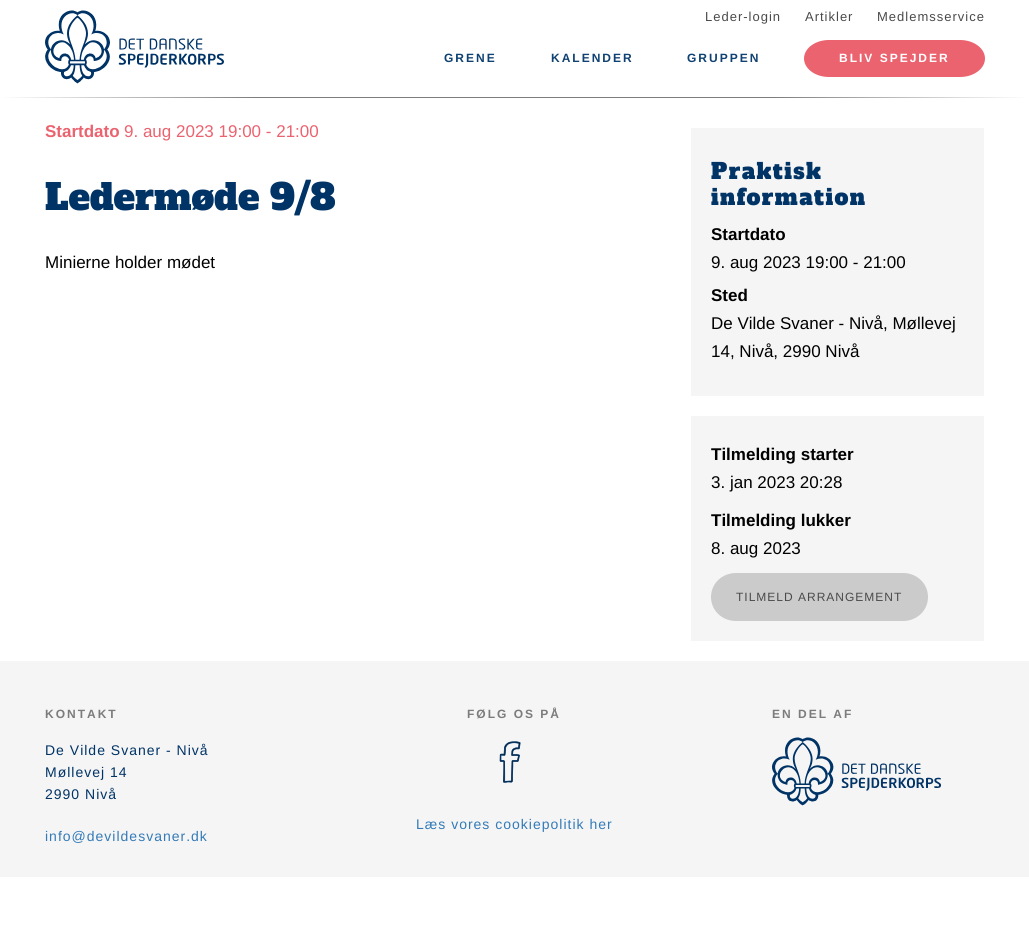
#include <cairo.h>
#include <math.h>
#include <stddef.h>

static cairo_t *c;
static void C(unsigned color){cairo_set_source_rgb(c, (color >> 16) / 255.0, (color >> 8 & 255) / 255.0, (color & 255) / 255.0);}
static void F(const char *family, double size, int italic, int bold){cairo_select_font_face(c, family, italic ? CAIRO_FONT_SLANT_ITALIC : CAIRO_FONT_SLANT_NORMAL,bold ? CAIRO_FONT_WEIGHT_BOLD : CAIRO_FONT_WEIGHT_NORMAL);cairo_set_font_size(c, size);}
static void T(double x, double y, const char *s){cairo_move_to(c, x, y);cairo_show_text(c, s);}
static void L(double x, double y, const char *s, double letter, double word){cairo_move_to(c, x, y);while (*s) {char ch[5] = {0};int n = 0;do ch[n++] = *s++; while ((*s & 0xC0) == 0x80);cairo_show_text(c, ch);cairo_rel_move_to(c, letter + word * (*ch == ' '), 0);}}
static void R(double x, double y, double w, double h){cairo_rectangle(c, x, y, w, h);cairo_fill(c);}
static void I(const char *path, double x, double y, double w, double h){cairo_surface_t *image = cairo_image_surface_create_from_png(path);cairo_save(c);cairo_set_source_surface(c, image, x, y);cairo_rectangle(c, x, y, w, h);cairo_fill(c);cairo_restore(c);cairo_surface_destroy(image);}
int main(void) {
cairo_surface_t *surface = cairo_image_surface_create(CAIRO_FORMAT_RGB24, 1029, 938);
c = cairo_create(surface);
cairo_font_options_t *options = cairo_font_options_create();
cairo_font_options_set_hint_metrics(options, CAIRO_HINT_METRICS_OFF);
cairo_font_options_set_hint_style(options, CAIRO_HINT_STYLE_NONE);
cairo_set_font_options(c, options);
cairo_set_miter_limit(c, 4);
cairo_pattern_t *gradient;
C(0xffffff);
cairo_paint(c);
I("1.png",45,10,179,74);
F("Liberation Sans",13,0,0);
C(0x4a4a4a);
L(705,21,"Leder-login",1,0);
L(805,21,"Artikler",1,0);
L(877,21,"Medlemsservice",1,0);
F("Liberation Sans",12,0,1);
C(0x0f4172);
L(444,62,"GRENE",2,0);
L(551,62,"KALENDER",2,0);
L(687,62,"GRUPPEN",2,0);
C(0xea636f);
R(829,40,131,37);
cairo_new_path(c);
cairo_move_to(c,829,40);
cairo_curve_to(c,843,40,854,48.5,854,58.5);
cairo_curve_to(c,854,68.5,843,77,829,77);
cairo_curve_to(c,815,77,804,68.5,804,58.5);
cairo_curve_to(c,804,48.5,815,40,829,40);
cairo_close_path(c);
cairo_fill(c);
cairo_new_path(c);
cairo_move_to(c,960,40);
cairo_curve_to(c,974,40,985,48.5,985,58.5);
cairo_curve_to(c,985,68.5,974,77,960,77);
cairo_curve_to(c,946,77,935,68.5,935,58.5);
cairo_curve_to(c,935,48.5,946,40,960,40);
cairo_close_path(c);
cairo_fill(c);
C(0xffffff);
L(839,62,"BLIV SPEJDER",2,0);
gradient = cairo_pattern_create_linear(1029,98,0,97);
cairo_pattern_add_color_stop_rgba(gradient,0,1,1,1,1);
cairo_pattern_add_color_stop_rgba(gradient,.25,0.486,0.486,0.486,1);
cairo_pattern_add_color_stop_rgba(gradient,.75,0.486,0.486,0.486,1);
cairo_pattern_add_color_stop_rgba(gradient,1,1,1,1,1);
cairo_set_source(c,gradient);
cairo_pattern_destroy(gradient);
R(0,97,1029,1);
F("Liberation Sans",17,0,1);
C(0xea636f);
T(45,137,"Startdato");
F("Liberation Sans",17,0,0);
T(124,137,"9. aug 2023 19:00 - 21:00");
F("Alfa Slab One",36,0,0);
C(0x003366);
T(45,210,"Ledermøde 9/8");
F("Liberation Sans",17,0,0);
C(0x000000);
T(45,268,"Minierne holder mødet");
C(0xf5f5f5);
R(691,128,293,268);
F("Alfa Slab One",22,0,0);
C(0x003366);
L(711,179,"Praktisk",1.4,0);
L(711,205,"information",1.4,0);
F("Liberation Sans",17,0,1);
C(0x000000);
T(711,240,"Startdato");
F("Liberation Sans",17,0,0);
T(711,268,"9. aug 2023 19:00 - 21:00");
F("Liberation Sans",17,0,1);
T(711,301,"Sted");
F("Liberation Sans",17,0,0);
T(711,329,"De Vilde Svaner - Nivå, Møllevej");
T(711,357,"14, Nivå, 2990 Nivå");
C(0xf5f5f5);
R(691,416,293,225);
F("Liberation Sans",17,0,1);
C(0x000000);
T(711,460,"Tilmelding starter");
F("Liberation Sans",17,0,0);
T(711,488,"3. jan 2023 20:28");
F("Liberation Sans",17,0,1);
T(711,526,"Tilmelding lukker");
F("Liberation Sans",17,0,0);
T(711,554,"8. aug 2023");
C(0xcbcbcb);
R(736,573,167,48);
cairo_new_path(c);
cairo_move_to(c,736,573);
cairo_curve_to(c,750,573,761,583.5,761,597);
cairo_curve_to(c,761,610.5,750,621,736,621);
cairo_curve_to(c,722,621,711,610.5,711,597);
cairo_curve_to(c,711,583.5,722,573,736,573);
cairo_close_path(c);
cairo_fill(c);
cairo_new_path(c);
cairo_move_to(c,903,573);
cairo_curve_to(c,917,573,928,583.5,928,597);
cairo_curve_to(c,928,610.5,917,621,903,621);
cairo_curve_to(c,889,621,878,610.5,878,597);
cairo_curve_to(c,878,583.5,889,573,903,573);
cairo_close_path(c);
cairo_fill(c);
F("Liberation Sans",12,0,0);
C(0x4a4a4a);
L(736,601,"TILMELD ARRANGEMENT",1,0);
C(0xf5f5f5);
R(0,661,1029,216);
F("Liberation Sans",12,0,1);
C(0x7c7c7c);
L(45,718,"KONTAKT",2,0);
F("Liberation Sans",14,0,0);
C(0x003366);
L(45,755,"De Vilde Svaner - Nivå",1,0);
L(45,777,"Møllevej 14",1,0);
L(45,799,"2990 Nivå",1,0);
C(0x337ab7);
L(45,841,"info@devildesvaner.dk",1,0);
F("Liberation Sans",12,0,1);
C(0x7c7c7c);
L(467,718,"FØLG OS PÅ",2,0);
I("2.png",499,741,22,42);
F("Liberation Sans",14,0,0);
C(0x337ab7);
L(416,829,"Læs vores cookiepolitik her",1,0);
F("Liberation Sans",12,0,1);
C(0x7c7c7c);
L(772,718,"EN DEL AF",2,0);
I("3.png",772,737,169,69);
cairo_surface_write_to_png(surface, "o.png");
cairo_font_options_destroy(options);
cairo_destroy(c);
cairo_surface_destroy(surface);
return 0;
}
